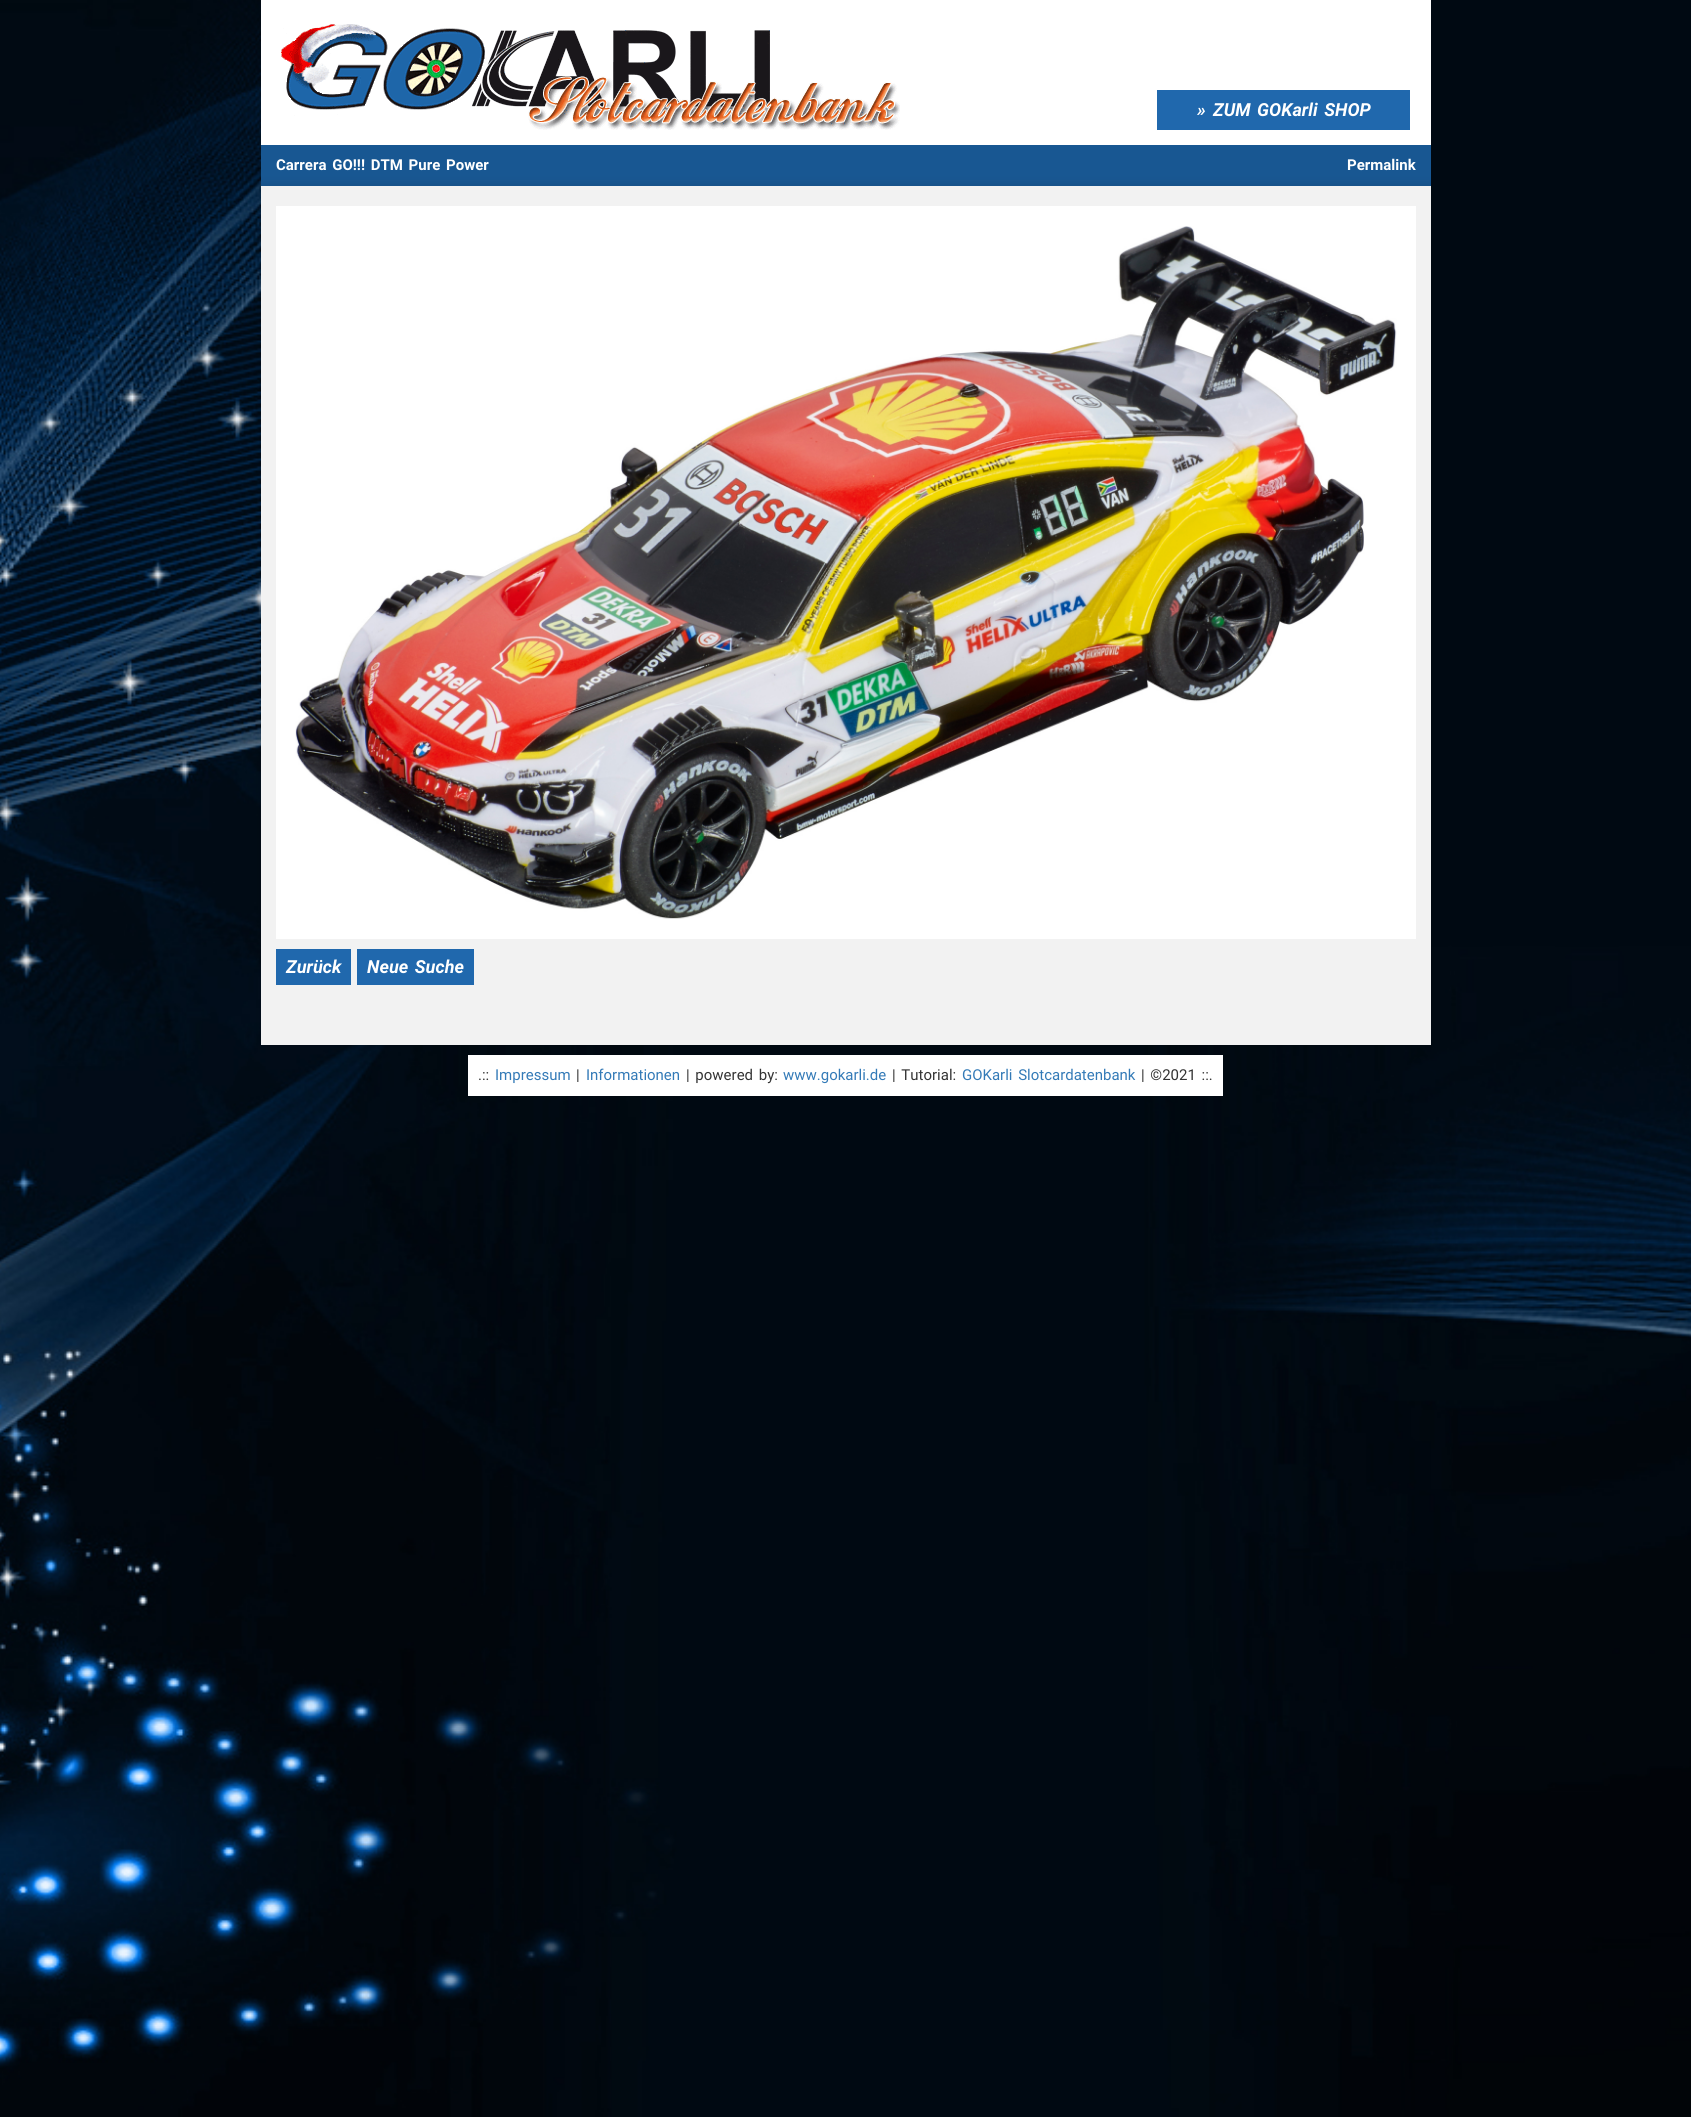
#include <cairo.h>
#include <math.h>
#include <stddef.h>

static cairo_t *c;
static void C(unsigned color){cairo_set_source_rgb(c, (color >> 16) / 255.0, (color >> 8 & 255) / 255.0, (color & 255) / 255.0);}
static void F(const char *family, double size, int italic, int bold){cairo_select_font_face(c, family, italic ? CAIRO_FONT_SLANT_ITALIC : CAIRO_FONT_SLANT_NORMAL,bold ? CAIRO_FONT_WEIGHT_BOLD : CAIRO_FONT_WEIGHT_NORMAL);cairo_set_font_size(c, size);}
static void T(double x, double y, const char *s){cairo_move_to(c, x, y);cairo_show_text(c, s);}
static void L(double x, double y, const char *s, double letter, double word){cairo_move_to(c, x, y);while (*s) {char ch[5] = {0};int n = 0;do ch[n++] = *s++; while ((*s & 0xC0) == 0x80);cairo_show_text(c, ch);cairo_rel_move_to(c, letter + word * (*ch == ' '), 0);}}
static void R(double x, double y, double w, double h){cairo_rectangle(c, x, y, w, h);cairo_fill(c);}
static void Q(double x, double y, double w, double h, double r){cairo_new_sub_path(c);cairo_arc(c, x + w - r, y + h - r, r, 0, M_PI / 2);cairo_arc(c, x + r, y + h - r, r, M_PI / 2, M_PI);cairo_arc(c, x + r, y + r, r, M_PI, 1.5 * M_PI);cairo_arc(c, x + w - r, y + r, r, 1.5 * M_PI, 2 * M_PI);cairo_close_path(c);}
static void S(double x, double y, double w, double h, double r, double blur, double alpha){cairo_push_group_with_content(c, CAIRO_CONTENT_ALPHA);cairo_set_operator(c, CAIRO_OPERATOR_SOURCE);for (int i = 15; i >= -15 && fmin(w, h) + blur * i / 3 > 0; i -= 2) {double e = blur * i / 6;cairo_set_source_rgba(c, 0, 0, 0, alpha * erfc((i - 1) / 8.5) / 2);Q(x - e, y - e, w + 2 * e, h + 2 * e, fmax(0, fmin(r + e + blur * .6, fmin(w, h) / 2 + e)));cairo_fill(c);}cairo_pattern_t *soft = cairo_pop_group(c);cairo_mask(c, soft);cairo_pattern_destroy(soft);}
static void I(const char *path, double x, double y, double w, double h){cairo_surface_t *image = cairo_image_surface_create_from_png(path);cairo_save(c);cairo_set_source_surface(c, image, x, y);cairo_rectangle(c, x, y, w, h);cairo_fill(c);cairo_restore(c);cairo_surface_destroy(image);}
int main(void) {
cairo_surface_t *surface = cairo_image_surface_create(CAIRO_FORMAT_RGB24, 1691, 2117);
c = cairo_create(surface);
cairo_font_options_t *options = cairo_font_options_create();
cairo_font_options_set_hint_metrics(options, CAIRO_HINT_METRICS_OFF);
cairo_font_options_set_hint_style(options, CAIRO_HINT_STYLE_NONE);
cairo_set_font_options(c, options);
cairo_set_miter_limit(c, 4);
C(0xffffff);
cairo_paint(c);
I("1.png",0,0,1691,2117);
C(0xffffff);
R(261,0,1170,145);
I("2.png",281,24,619,106);
C(0x2068ad);
R(1157,90,253,40);
F("Roboto",18,1,1);
C(0xffffff);
T(1197,116,"»");
L(1213,116,"ZUM GOKarli SHOP",0,2);
C(0x185792);
R(261,145,1170,41);
F("Roboto",15,0,1);
C(0xffffff);
L(276,170,"Carrera GO!!! DTM Pure Power",0,2);
T(1347,170,"Permalink");
R(468,1055,755,41);
C(0x000000);
S(260,185,1172,861,0,5,.1);
C(0xf2f2f2);
R(261,186,1170,859);
C(0xffffff);
R(276,206,1140,733);
I("3.png",295,226,1102,693);
C(0x2068ad);
R(276,949,75,36);
F("Roboto",18,1,1);
C(0xffffff);
T(286,973,"Zurück");
C(0x2068ad);
R(357,949,117,36);
C(0xffffff);
L(367,973,"Neue Suche",0,2);
F("Roboto",15,0,0);
C(0x333333);
T(478,1080,".::");
C(0x337ab7);
T(495,1080,"Impressum");
C(0x333333);
T(576,1080,"|");
C(0x337ab7);
T(586,1080,"Informationen");
C(0x333333);
L(686,1080,"| powered by:",0,2);
C(0x337ab7);
T(783,1080,"www.gokarli.de");
C(0x333333);
L(892,1080,"| Tutorial:",0,2);
C(0x337ab7);
L(962,1080,"GOKarli Slotcardatenbank",0,2);
C(0x333333);
L(1141,1080,"| ©2021 ::.",0,2);
cairo_surface_write_to_png(surface, "o.png");
cairo_font_options_destroy(options);
cairo_destroy(c);
cairo_surface_destroy(surface);
return 0;
}
